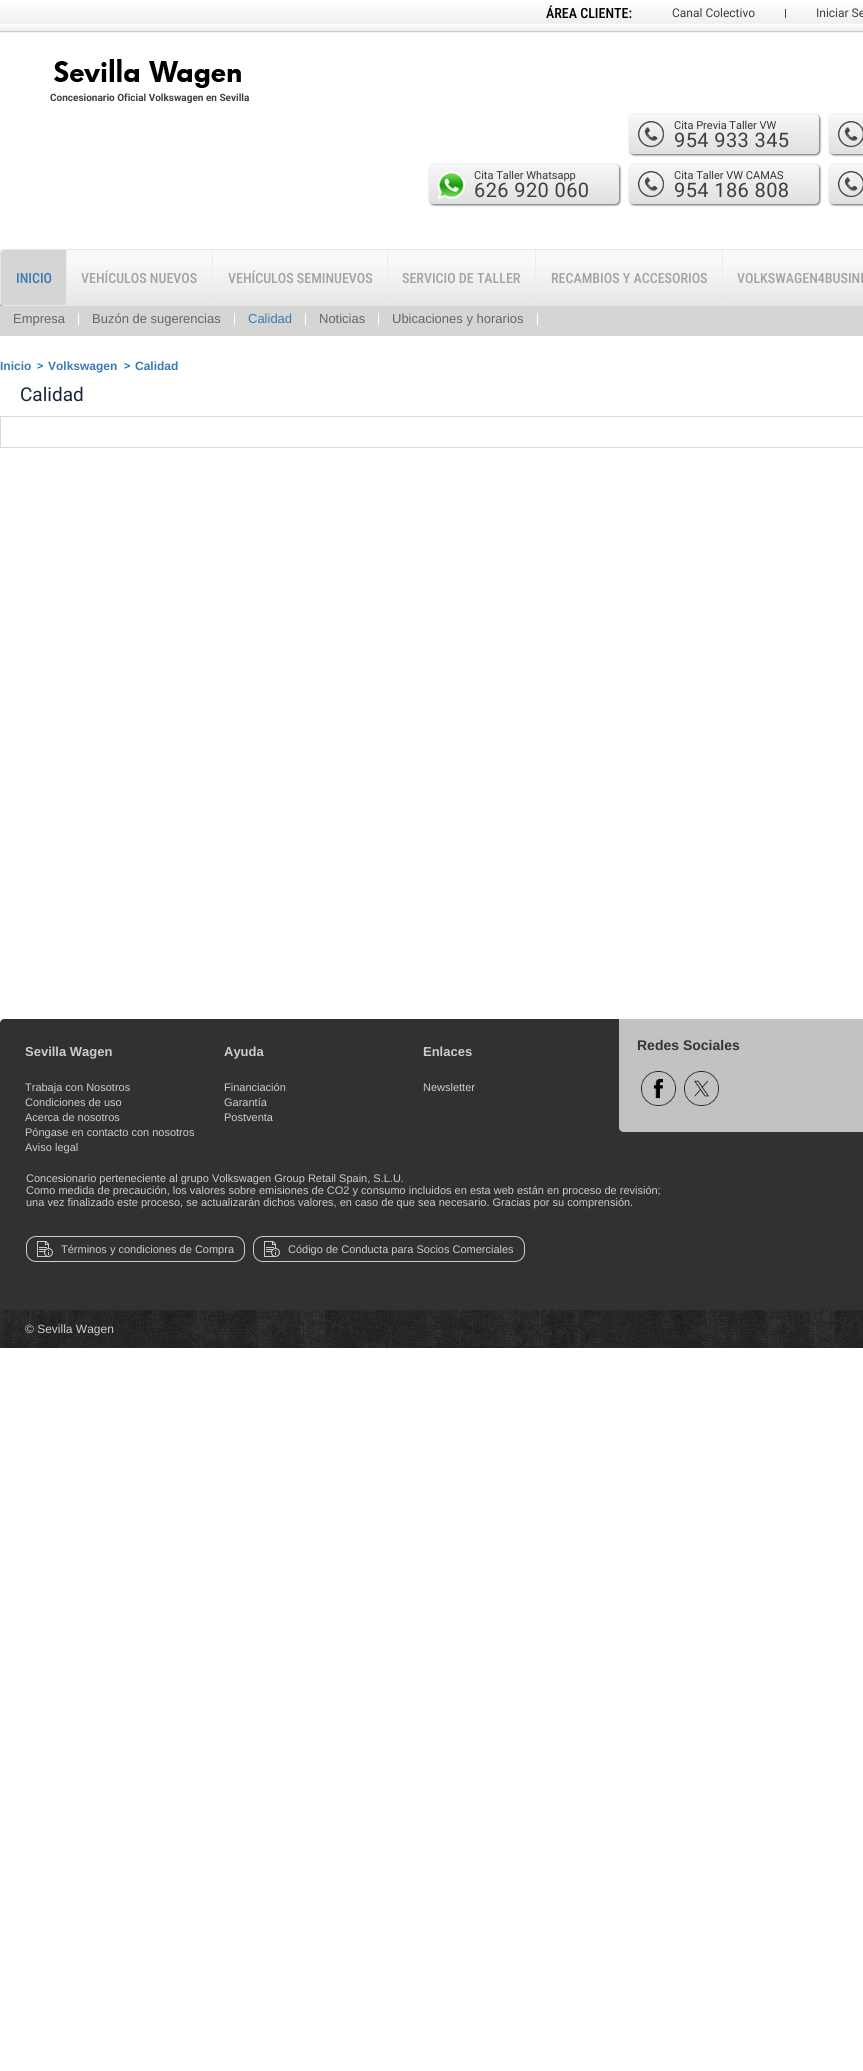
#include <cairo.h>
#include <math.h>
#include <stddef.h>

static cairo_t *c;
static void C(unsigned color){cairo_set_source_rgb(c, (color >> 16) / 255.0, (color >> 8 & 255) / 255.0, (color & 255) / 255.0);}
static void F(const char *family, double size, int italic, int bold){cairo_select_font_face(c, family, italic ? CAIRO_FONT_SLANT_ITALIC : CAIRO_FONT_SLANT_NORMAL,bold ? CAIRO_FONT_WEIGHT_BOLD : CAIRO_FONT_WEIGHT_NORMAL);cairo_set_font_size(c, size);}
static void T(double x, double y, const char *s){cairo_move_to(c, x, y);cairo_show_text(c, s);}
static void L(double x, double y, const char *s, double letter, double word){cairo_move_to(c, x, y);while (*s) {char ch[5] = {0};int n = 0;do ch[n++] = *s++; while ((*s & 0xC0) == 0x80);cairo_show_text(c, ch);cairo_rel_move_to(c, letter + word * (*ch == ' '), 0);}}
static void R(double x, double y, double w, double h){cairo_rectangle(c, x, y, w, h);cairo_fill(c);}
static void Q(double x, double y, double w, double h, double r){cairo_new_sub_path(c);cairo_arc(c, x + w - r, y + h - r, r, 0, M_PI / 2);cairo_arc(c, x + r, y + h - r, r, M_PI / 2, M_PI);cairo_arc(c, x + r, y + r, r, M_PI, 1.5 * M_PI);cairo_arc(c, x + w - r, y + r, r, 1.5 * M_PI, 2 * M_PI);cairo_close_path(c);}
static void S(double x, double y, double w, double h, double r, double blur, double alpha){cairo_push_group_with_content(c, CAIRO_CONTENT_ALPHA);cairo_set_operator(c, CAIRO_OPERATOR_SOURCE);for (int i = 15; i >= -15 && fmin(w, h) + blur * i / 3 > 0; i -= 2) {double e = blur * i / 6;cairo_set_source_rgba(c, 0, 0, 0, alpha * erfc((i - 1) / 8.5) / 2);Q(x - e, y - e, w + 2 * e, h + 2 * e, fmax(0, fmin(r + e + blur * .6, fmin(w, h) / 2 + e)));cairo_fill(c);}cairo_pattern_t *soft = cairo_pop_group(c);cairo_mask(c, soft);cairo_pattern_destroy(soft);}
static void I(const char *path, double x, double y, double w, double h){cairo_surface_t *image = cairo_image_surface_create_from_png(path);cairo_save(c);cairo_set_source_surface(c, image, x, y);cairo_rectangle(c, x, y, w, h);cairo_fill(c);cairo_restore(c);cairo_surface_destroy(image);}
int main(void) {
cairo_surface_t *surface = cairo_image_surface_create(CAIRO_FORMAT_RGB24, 863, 2071);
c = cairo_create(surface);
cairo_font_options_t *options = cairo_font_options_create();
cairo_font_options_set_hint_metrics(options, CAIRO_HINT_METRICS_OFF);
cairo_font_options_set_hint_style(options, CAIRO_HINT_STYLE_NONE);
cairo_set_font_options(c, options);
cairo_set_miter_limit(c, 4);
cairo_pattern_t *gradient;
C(0xffffff);
cairo_paint(c);
C(0x666666);
S(0,0,863,31,0,1,1);
gradient = cairo_pattern_create_linear(432,0,432,31);
cairo_pattern_add_color_stop_rgba(gradient,.07,0.996,0.996,0.996,1);
cairo_pattern_add_color_stop_rgba(gradient,.75,0.937,0.937,0.937,1);
cairo_pattern_add_color_stop_rgba(gradient,.78,1,1,1,1);
cairo_pattern_add_color_stop_rgba(gradient,.98,0.937,0.937,0.937,1);
cairo_set_source(c,gradient);
cairo_pattern_destroy(gradient);
R(0,0,863,31);
F("Roboto Condensed Medium",14,0,0);
C(0x000000);
T(546,18,"ÁREA CLIENTE:");
C(0x444444);
R(785,9,1,9);
F("Roboto",12,0,0);
C(0x3f3f3f);
T(672,17,"Canal Colectivo");
T(816,17,"Iniciar Se");
I("1.png",53,59,188,29);
F("Roboto",10,0,1);
T(50,101,"Concesionario Oficial Volkswagen en Sevilla");
C(0x666666);
S(630,115,190,40,4,1,1);
gradient = cairo_pattern_create_linear(724,114,724,154);
cairo_pattern_add_color_stop_rgba(gradient,0,0.969,0.969,0.969,1);
cairo_pattern_add_color_stop_rgba(gradient,1,0.878,0.878,0.878,1);
cairo_set_source(c,gradient);
cairo_pattern_destroy(gradient);
Q(629,114,190,40,4);
cairo_fill(c);
I("2.png",638,121,26,26);
F("Roboto",11,0,0);
C(0x333333);
T(674,129,"Cita Previa Taller VW");
F("Roboto",20,0,0);
C(0x3f3f3f);
L(674,147,"954 933 345",.4,0);
C(0x666666);
S(830,115,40,40,4,1,1);
gradient = cairo_pattern_create_linear(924,114,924,154);
cairo_pattern_add_color_stop_rgba(gradient,0,0.969,0.969,0.969,1);
cairo_pattern_add_color_stop_rgba(gradient,1,0.878,0.878,0.878,1);
cairo_set_source(c,gradient);
cairo_pattern_destroy(gradient);
Q(829,114,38,40,4);
cairo_fill(c);
I("3.png",838,121,25,26);
C(0x666666);
S(430,165,190,40,4,1,1);
gradient = cairo_pattern_create_linear(524,164,524,204);
cairo_pattern_add_color_stop_rgba(gradient,0,0.969,0.969,0.969,1);
cairo_pattern_add_color_stop_rgba(gradient,1,0.878,0.878,0.878,1);
cairo_set_source(c,gradient);
cairo_pattern_destroy(gradient);
Q(429,164,190,40,4);
cairo_fill(c);
I("4.png",437,172,29,27);
F("Roboto",11,0,0);
C(0x333333);
T(474,179,"Cita Taller Whatsapp");
F("Roboto",20,0,0);
C(0x3f3f3f);
L(474,197,"626 920 060",.4,0);
C(0x666666);
S(630,165,190,40,4,1,1);
gradient = cairo_pattern_create_linear(724,164,724,204);
cairo_pattern_add_color_stop_rgba(gradient,0,0.969,0.969,0.969,1);
cairo_pattern_add_color_stop_rgba(gradient,1,0.878,0.878,0.878,1);
cairo_set_source(c,gradient);
cairo_pattern_destroy(gradient);
Q(629,164,190,40,4);
cairo_fill(c);
I("2.png",638,171,26,26);
F("Roboto",11,0,0);
C(0x333333);
T(674,179,"Cita Taller VW CAMAS");
F("Roboto",20,0,0);
C(0x3f3f3f);
L(674,197,"954 186 808",.4,0);
C(0x666666);
S(830,165,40,40,4,1,1);
gradient = cairo_pattern_create_linear(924,164,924,204);
cairo_pattern_add_color_stop_rgba(gradient,0,0.969,0.969,0.969,1);
cairo_pattern_add_color_stop_rgba(gradient,1,0.878,0.878,0.878,1);
cairo_set_source(c,gradient);
cairo_pattern_destroy(gradient);
Q(829,164,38,40,4);
cairo_fill(c);
I("3.png",838,171,25,26);
C(0x777777);
S(0,251,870,57,4,1,1);
cairo_save(c);
Q(0,249,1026,57,4);
cairo_clip(c);
gradient = cairo_pattern_create_linear(513,250,513,305);
cairo_pattern_add_color_stop_rgba(gradient,0,0.976,0.976,0.976,1);
cairo_pattern_add_color_stop_rgba(gradient,.2,0.976,0.976,0.976,1);
cairo_pattern_add_color_stop_rgba(gradient,1,0.902,0.902,0.902,1);
cairo_set_source(c,gradient);
cairo_pattern_destroy(gradient);
R(0,250,863,55);
cairo_restore(c);
Q(.5,249.5,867,56,3.5);
C(0xe6e6e6);
cairo_set_line_width(c,1);
cairo_stroke(c);
C(0xd5d5d4);
cairo_new_path(c);
cairo_move_to(c,4,250);
cairo_line_to(c,66,250);
cairo_line_to(c,66,305);
cairo_line_to(c,4,305);
cairo_curve_to(c,2.5,305,1,303.5,1,302);
cairo_line_to(c,1,253);
cairo_curve_to(c,1,251.5,2.5,250,4,250);
cairo_close_path(c);
cairo_fill(c);
F("Roboto Condensed Medium",14,0,0);
C(0x3b7ab2);
T(16,283,"INICIO");
C(0xececec);
R(66,250,1,55);
C(0xa3a3a3);
T(81,283,"VEHÍCULOS NUEVOS");
C(0xececec);
R(212,250,1,55);
C(0xa3a3a3);
T(228,283,"VEHÍCULOS SEMINUEVOS");
C(0xececec);
R(387,250,1,55);
C(0xa3a3a3);
T(402,283,"SERVICIO DE TALLER");
C(0xececec);
R(535,250,1,55);
C(0xa3a3a3);
T(551,283,"RECAMBIOS Y ACCESORIOS");
C(0xececec);
R(722,250,1,55);
C(0xa3a3a3);
T(737,283,"VOLKSWAGEN4BUSINE");
C(0xd5d5d4);
R(0,306,863,30);
C(0xffffff);
R(78,313,1,12);
F("Liberation Sans",13,0,0);
C(0x666666);
T(13,323,"Empresa");
C(0xffffff);
R(234,313,1,12);
C(0x666666);
T(92,323,"Buzón de sugerencias");
C(0xffffff);
R(305,313,1,12);
C(0x3b7ab2);
T(248,323,"Calidad");
C(0xffffff);
R(378,313,1,12);
C(0x666666);
T(319,323,"Noticias");
C(0xffffff);
R(537,313,1,12);
C(0x666666);
T(392,323,"Ubicaciones y horarios");
F("Liberation Sans",12,0,1);
C(0x3b7ab2);
T(0,370,"Inicio");
I("5.png",37,363,6,6);
T(48,370,"Volkswagen");
I("5.png",124,363,6,6);
T(135,370,"Calidad");
F("Roboto",19,0,0);
C(0x192535);
T(20,401,"Calidad");
cairo_rectangle(c,.5,416.5,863,31);
C(0xd9d9d9);
cairo_stroke(c);
C(0x313131);
cairo_new_path(c);
cairo_move_to(c,4,1019);
cairo_line_to(c,863,1019);
cairo_curve_to(c,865,1019,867,1021,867,1023);
cairo_line_to(c,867,1310);
cairo_line_to(c,0,1310);
cairo_line_to(c,0,1023);
cairo_curve_to(c,0,1021,2,1019,4,1019);
cairo_close_path(c);
cairo_fill(c);
F("Liberation Sans",13,0,1);
C(0xcccccc);
T(25,1056,"Sevilla Wagen");
F("Liberation Sans",11,0,0);
T(25,1091,"Trabaja con Nosotros");
T(25,1106,"Condiciones de uso");
T(25,1121,"Acerca de nosotros");
T(25,1136,"Póngase en contacto con nosotros");
T(25,1151,"Aviso legal");
F("Liberation Sans",13,0,1);
T(224,1056,"Ayuda");
F("Liberation Sans",11,0,0);
T(224,1091,"Financiación");
T(224,1106,"Garantía");
T(224,1121,"Postventa");
F("Liberation Sans",13,0,1);
T(423,1056,"Enlaces");
F("Liberation Sans",11,0,0);
T(423,1091,"Newsletter");
C(0xc2c2c2);
cairo_new_path(c);
cairo_move_to(c,619,1019);
cairo_line_to(c,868,1019);
cairo_line_to(c,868,1127);
cairo_curve_to(c,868,1130,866,1132,863,1132);
cairo_line_to(c,624,1132);
cairo_curve_to(c,621,1132,619,1130,619,1127);
cairo_close_path(c);
cairo_fill(c);
F("Liberation Sans",14,0,1);
C(0x333333);
T(637,1050,"Redes Sociales");
I("6.png",641,1071,35,35);
I("7.png",684,1071,35,35);
F("Liberation Sans",11,0,0);
C(0xcccccc);
T(26,1182,"Concesionario perteneciente al grupo Volkswagen Group Retail Spain, S.L.U.");
T(26,1194,"Como medida de precaución, los valores sobre emisiones de CO2 y consumo incluidos en esta web están en proceso de revisión;");
T(26,1206,"una vez finalizado este proceso, se actualizarán dichos valores, en caso de que sea necesario. Gracias por su comprensión.");
Q(26.5,1236.5,218,25,9.5);
cairo_stroke(c);
I("8.png",37,1241,16,16);
T(61,1253,"Términos y condiciones de Compra");
Q(253.5,1236.5,271,25,9.5);
cairo_stroke(c);
I("8.png",264,1241,16,16);
T(288,1253,"Código de Conducta para Socios Comerciales");
I("9.png",0,1310,863,38);
F("Liberation Sans",12,0,0);
T(25,1333,"© Sevilla Wagen");
cairo_surface_write_to_png(surface, "o.png");
cairo_font_options_destroy(options);
cairo_destroy(c);
cairo_surface_destroy(surface);
return 0;
}
